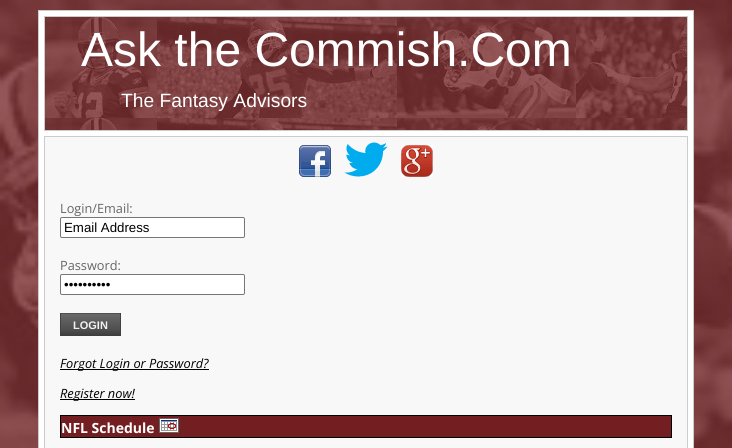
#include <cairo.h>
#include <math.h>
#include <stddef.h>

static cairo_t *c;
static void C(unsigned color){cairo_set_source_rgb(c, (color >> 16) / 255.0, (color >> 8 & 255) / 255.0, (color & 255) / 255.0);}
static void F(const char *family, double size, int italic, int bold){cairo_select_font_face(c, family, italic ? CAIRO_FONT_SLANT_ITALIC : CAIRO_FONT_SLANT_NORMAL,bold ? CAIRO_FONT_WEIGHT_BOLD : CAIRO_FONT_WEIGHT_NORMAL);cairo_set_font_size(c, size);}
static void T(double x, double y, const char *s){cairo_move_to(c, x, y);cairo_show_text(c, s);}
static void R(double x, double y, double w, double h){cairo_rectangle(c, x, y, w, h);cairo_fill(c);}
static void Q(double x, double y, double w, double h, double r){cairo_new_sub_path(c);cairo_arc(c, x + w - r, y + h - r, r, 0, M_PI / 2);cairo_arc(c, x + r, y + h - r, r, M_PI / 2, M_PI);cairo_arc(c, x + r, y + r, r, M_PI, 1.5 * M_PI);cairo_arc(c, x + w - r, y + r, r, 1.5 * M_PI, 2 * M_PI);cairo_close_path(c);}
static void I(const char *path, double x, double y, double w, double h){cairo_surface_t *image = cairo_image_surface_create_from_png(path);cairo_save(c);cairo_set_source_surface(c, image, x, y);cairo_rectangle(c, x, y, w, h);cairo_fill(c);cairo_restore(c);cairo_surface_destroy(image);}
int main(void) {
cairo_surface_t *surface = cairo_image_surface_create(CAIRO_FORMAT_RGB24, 732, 448);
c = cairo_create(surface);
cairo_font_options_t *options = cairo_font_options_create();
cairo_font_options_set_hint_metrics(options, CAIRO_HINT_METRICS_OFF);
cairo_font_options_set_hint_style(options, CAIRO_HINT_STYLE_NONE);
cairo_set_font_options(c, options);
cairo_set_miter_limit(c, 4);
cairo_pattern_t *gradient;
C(0xffffff);
cairo_paint(c);
I("1.png",0,0,732,448);
C(0xffffff);
cairo_rectangle(c,38.5,10.5,655,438);
cairo_fill_preserve(c);
C(0xcccccc);
cairo_set_line_width(c,1);
cairo_stroke(c);
I("2.png",45,17,642,113);
cairo_rectangle(c,44.5,16.5,643,114);
cairo_stroke(c);
F("Liberation Sans",48,0,0);
C(0xffffff);
T(81,66,"Ask the Commish.Com");
F("Liberation Sans",19.25,0,0);
T(121,107,"The Fantasy Advisors");
C(0xf8f8f8);
cairo_rectangle(c,44.5,136.5,643,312);
cairo_fill_preserve(c);
C(0xcccccc);
cairo_stroke(c);
I("3.png",299,145,32,32);
I("4.png",344,142,44,35);
I("5.png",401,145,32,32);
F("Open Sans",12.75,0,0);
C(0x666666);
T(60,213,"Login/Email:");
C(0xffffff);
Q(60.5,217.5,184,20,1.5);
cairo_fill_preserve(c);
C(0x767676);
cairo_stroke(c);
F("Liberation Sans",13.25,0,0);
C(0x000000);
T(64,232,"Email Address");
F("Open Sans",12.75,0,0);
C(0x666666);
T(60,270,"Password:");
C(0xffffff);
Q(60.5,274.5,184,20,1.5);
cairo_fill_preserve(c);
C(0x767676);
cairo_stroke(c);
F("Liberation Sans",13.25,0,0);
C(0x000000);
T(64,289,"••••••••••");
gradient = cairo_pattern_create_linear(91,314,91,336);
cairo_pattern_add_color_stop_rgba(gradient,0,0.412,0.412,0.412,1);
cairo_pattern_add_color_stop_rgba(gradient,.7,0.31,0.31,0.31,1);
cairo_pattern_add_color_stop_rgba(gradient,1,0.235,0.235,0.235,1);
cairo_set_source(c,gradient);
cairo_pattern_destroy(gradient);
R(61,314,59,22);
C(0x505050);
R(60,313,61,1);
C(0x414141);
R(120,313,1,23);
R(60,313,1,23);
F("Liberation Sans",11,0,1);
C(0xf1f1f1);
T(73,329,"LOGIN");
C(0x000000);
R(60,369,149,1);
F("Open Sans",12.75,1,0);
T(60,368,"Forgot Login or Password?");
R(60,399,75,1);
T(60,398,"Register now!");
C(0x731f21);
cairo_rectangle(c,60.5,415.5,611,22);
cairo_fill_preserve(c);
C(0x000000);
cairo_stroke(c);
F("Open Sans",14,0,1);
C(0xffffff);
T(61,433,"NFL Schedule");
I("6.png",159,418,20,15);
cairo_surface_write_to_png(surface, "o.png");
cairo_font_options_destroy(options);
cairo_destroy(c);
cairo_surface_destroy(surface);
return 0;
}
